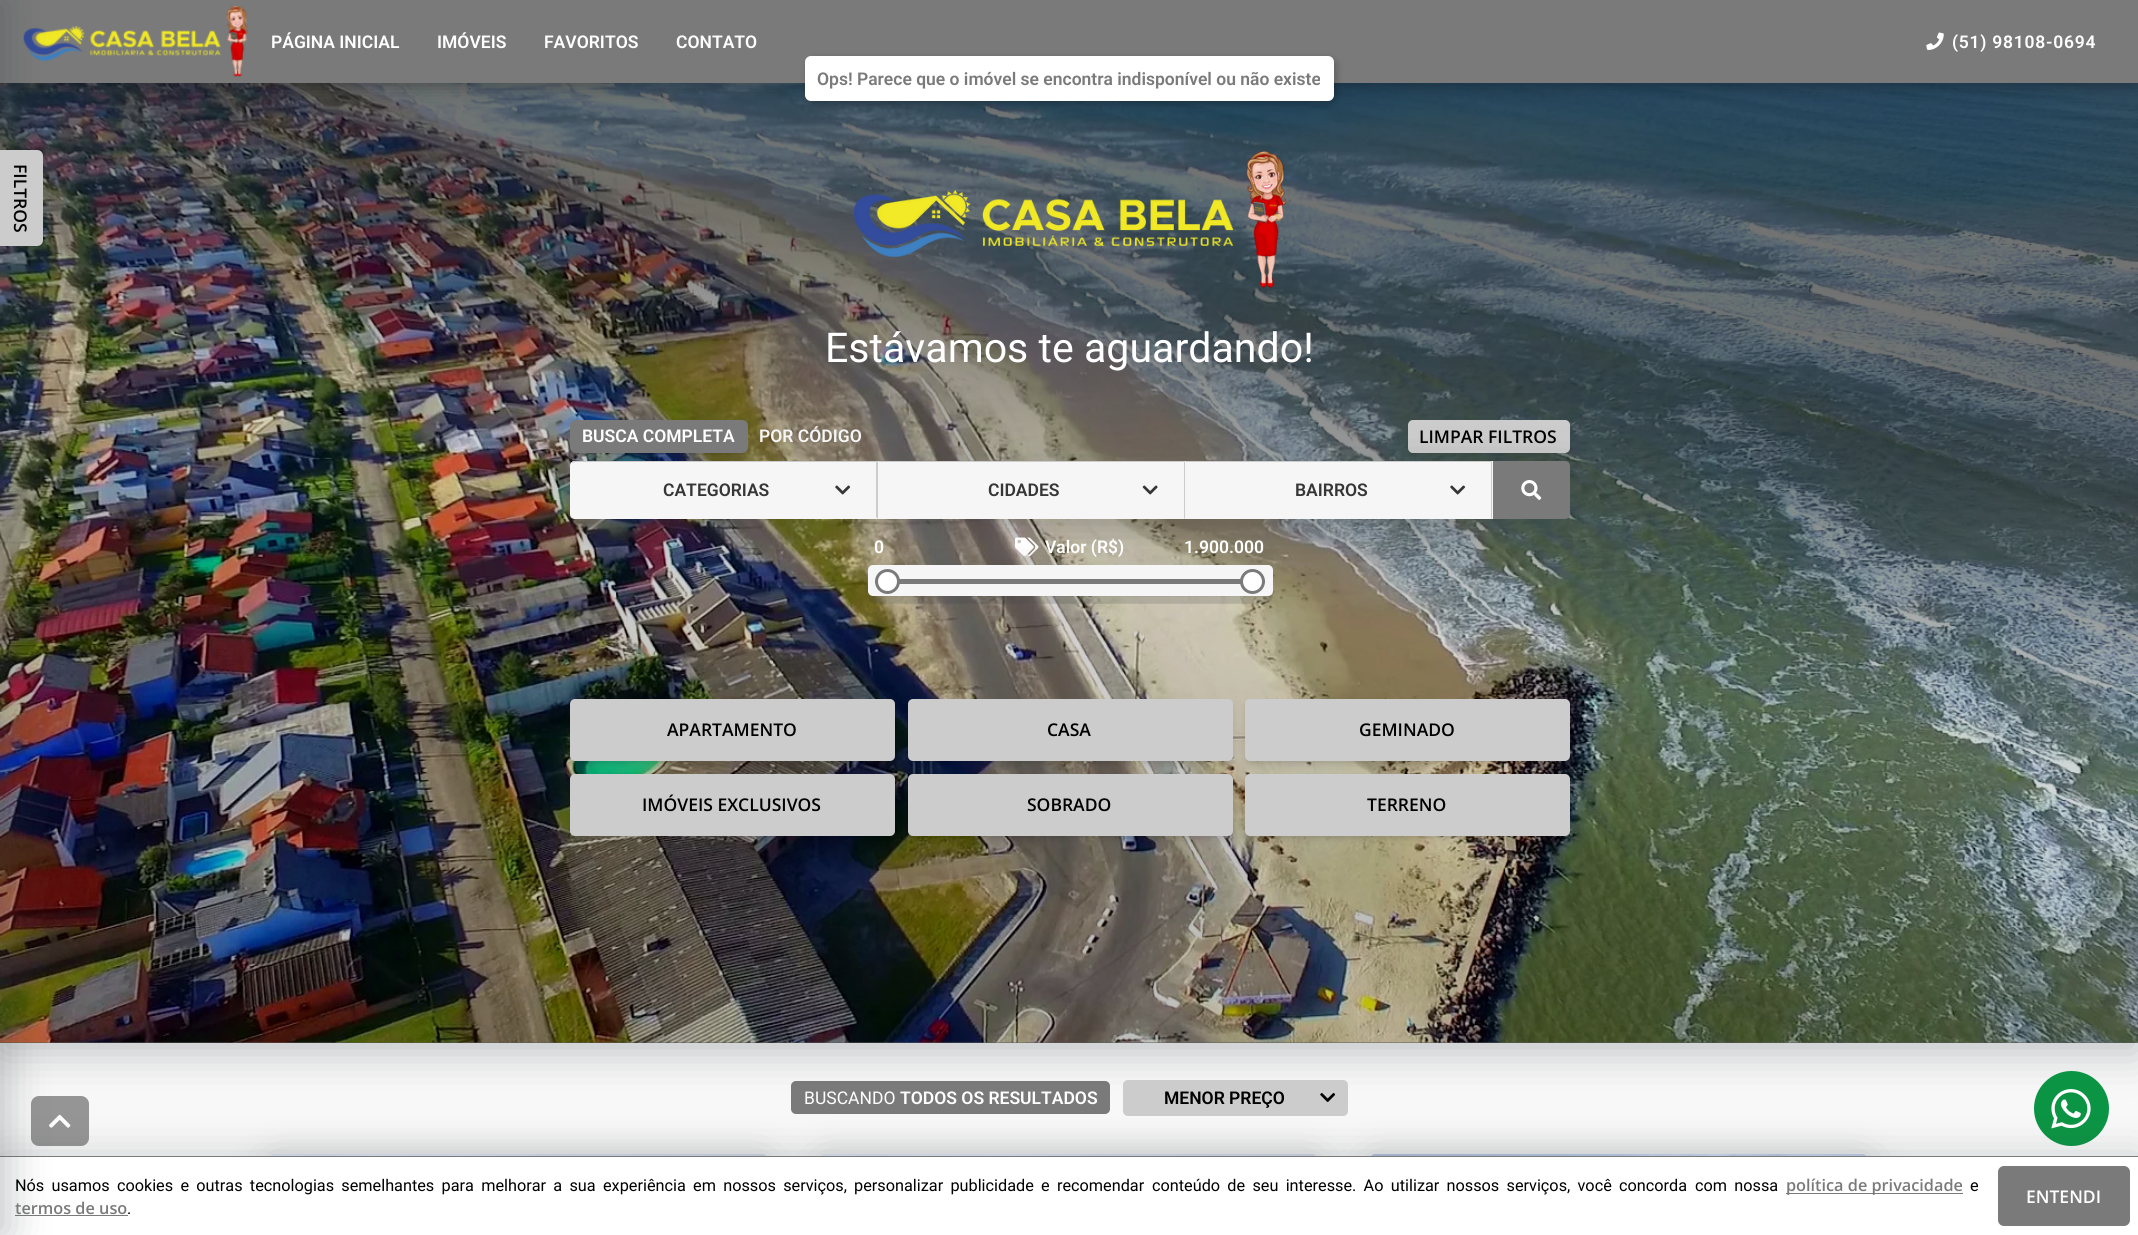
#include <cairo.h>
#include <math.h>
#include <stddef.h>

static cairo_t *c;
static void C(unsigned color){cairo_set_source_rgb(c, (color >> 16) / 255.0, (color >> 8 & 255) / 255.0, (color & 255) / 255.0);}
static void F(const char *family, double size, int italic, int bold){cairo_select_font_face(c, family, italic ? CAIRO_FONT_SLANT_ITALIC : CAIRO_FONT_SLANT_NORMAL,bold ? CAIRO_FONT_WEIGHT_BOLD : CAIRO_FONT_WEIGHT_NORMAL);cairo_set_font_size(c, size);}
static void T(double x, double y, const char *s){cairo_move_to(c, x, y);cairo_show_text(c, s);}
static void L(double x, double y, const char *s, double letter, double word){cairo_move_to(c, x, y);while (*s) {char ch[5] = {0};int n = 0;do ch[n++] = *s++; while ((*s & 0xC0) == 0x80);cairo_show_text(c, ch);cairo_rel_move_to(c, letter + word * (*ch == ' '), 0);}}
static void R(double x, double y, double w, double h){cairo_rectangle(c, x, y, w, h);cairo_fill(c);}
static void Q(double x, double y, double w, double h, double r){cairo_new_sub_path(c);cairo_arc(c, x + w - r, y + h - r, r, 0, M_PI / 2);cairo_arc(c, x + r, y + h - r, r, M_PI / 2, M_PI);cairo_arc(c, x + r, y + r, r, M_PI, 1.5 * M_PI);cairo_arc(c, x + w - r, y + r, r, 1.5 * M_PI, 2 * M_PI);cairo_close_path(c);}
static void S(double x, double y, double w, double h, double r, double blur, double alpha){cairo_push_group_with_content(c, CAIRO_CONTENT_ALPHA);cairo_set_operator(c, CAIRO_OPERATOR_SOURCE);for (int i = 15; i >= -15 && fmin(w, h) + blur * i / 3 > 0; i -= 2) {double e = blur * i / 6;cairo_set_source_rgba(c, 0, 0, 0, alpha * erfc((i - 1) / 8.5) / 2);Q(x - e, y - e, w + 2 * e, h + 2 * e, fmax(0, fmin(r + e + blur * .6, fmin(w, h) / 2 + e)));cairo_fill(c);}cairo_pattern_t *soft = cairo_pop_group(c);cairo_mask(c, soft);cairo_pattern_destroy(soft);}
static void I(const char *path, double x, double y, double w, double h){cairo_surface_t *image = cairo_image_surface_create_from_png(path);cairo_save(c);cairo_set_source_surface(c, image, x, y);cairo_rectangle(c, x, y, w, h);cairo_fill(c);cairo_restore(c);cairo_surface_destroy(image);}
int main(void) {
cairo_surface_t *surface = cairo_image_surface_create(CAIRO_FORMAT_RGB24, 2138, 1235);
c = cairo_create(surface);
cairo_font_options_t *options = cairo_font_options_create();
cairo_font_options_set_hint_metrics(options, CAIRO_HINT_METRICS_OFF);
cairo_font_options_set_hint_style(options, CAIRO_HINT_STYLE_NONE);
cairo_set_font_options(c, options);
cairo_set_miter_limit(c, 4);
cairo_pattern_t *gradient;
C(0xf8f8f8);
cairo_paint(c);
C(0x7a7a7a);
Q(791,1081,319,33,5);
cairo_fill(c);
C(0x3b4047);
S(0,93,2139,960,0,21,.3);
C(0x7a7a7a);
R(0,1042,2138,1);
I("3.png",0,83,2138,960);
gradient = cairo_pattern_create_linear(926,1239,1213,-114);
cairo_pattern_add_color_stop_rgba(gradient,.3,0,0,0,.25);
cairo_pattern_add_color_stop_rgba(gradient,.5,0,0,0,.15);
cairo_pattern_add_color_stop_rgba(gradient,.7,0,0,0,.55);
cairo_set_source(c,gradient);
cairo_pattern_destroy(gradient);
R(0,83,2138,960);
C(0x000000);
S(0,3,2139,82,0,10,.4);
C(0x7a7a7a);
R(0,0,2138,83);
I("1.png",23,6,225,71);
F("Roboto SemiBold",17.5,0,0);
C(0xffffff);
T(271,48,"PÁGINA INICIAL");
T(437,48,"IMÓVEIS");
T(544,48,"FAVORITOS");
T(676,48,"CONTATO");
I("2.png",1926,32,18,18);
L(1952,48,"(51) 98108-0694",.75,0);
I("4.png",853,151,434,137);
F("Roboto",41.1,0,0);
T(825,362,"Estávamos te aguardando!");
C(0x000000);
S(571,424,175,30,5,2.5,.06);
cairo_save(c);
cairo_rectangle(c,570,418,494,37);
cairo_clip(c);
S(571,426,175,30,5,4,.1);
cairo_restore(c);
S(1409,426,160,30,4,4,.1);
C(0xcccccc);
Q(1408,420,162,33,5);
cairo_fill(c);
C(0x3b4047);
S(570,471,1000,58,5,21,.3);
C(0x7a7a7a);
Q(570,420,178,33,6);
cairo_fill(c);
F("Roboto SemiBold",17.5,0,0);
C(0xffffff);
T(582,442,"BUSCA COMPLETA");
C(0xf6f6f6);
T(759,442,"POR CÓDIGO");
F("Open Sans SemiBold",17.5,0,0);
C(0x000000);
T(1419,443,"LIMPAR FILTROS");
C(0xf6f6f6);
cairo_new_path(c);
cairo_move_to(c,575,461);
cairo_line_to(c,878,461);
cairo_line_to(c,878,519);
cairo_line_to(c,575,519);
cairo_curve_to(c,572,519,570,517,570,514);
cairo_line_to(c,570,466);
cairo_curve_to(c,570,463,572,461,575,461);
cairo_close_path(c);
cairo_fill(c);
C(0xcccccc);
cairo_new_path(c);
cairo_move_to(c,575,462);
cairo_line_to(c,572,463);
cairo_line_to(c,571,463);
cairo_line_to(c,573,461);
cairo_line_to(c,878,461);
cairo_line_to(c,876,463);
cairo_line_to(c,876,462);
cairo_close_path(c);
cairo_fill(c);
cairo_new_path(c);
cairo_move_to(c,878,461);
cairo_line_to(c,876,463);
cairo_line_to(c,876,517);
cairo_line_to(c,878,519);
cairo_close_path(c);
cairo_fill(c);
F("Roboto SemiBold",17.5,0,0);
C(0x363636);
T(663,496,"CATEGORIAS");
I("5.png",835,485,16,10);
C(0xf6f6f6);
R(878,461,615,58);
C(0xcccccc);
cairo_new_path(c);
cairo_move_to(c,878,461);
cairo_line_to(c,1185,461);
cairo_line_to(c,1184,462);
cairo_line_to(c,879,462);
cairo_close_path(c);
cairo_fill(c);
cairo_new_path(c);
cairo_move_to(c,1185,461);
cairo_line_to(c,1185,519);
cairo_line_to(c,1184,518);
cairo_line_to(c,1184,462);
cairo_close_path(c);
cairo_fill(c);
C(0x363636);
T(988,496,"CIDADES");
I("6.png",1142,485,16,10);
C(0xcccccc);
cairo_new_path(c);
cairo_move_to(c,1185,461);
cairo_line_to(c,1492,461);
cairo_line_to(c,1491,462);
cairo_line_to(c,1186,462);
cairo_close_path(c);
cairo_fill(c);
cairo_new_path(c);
cairo_move_to(c,1492,461);
cairo_line_to(c,1492,519);
cairo_line_to(c,1491,518);
cairo_line_to(c,1491,462);
cairo_close_path(c);
cairo_fill(c);
C(0x363636);
T(1295,496,"BAIRROS");
I("5.png",1450,485,16,10);
C(0x7a7a7a);
cairo_new_path(c);
cairo_move_to(c,1493,461);
cairo_line_to(c,1565,461);
cairo_curve_to(c,1568,461,1570,463,1570,466);
cairo_line_to(c,1570,514);
cairo_curve_to(c,1570,517,1568,519,1565,519);
cairo_line_to(c,1493,519);
cairo_close_path(c);
cairo_fill(c);
I("7.png",1521,480,21,20);
I("8.png",1015,537,24,20);
cairo_save(c);
Q(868,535,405,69,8);
cairo_clip(c);
C(0x3b4047);
S(868,575,405,31,5,17.5,.3);
cairo_restore(c);
C(0xf6f6f6);
Q(868,565,405,31,5);
cairo_fill(c);
C(0x7a7a7a);
Q(875,579,390,5,2.5);
cairo_fill(c);
C(0xffffff);
cairo_arc(c,1252.5,581.5,11,0,2 * M_PI);
cairo_fill_preserve(c);
C(0x7a7a7a);
cairo_set_line_width(c,3);
cairo_stroke(c);
C(0xffffff);
cairo_arc(c,887.5,581.5,11,0,2 * M_PI);
cairo_fill_preserve(c);
C(0x7a7a7a);
cairo_stroke(c);
C(0xffffff);
T(874,553,"0");
T(1045,553,"Valor (R$)");
T(1184,553,"1.900.000");
C(0x000000);
S(571,703,323,60,4,2.5,.06);
S(571,705,323,60,4,4,.1);
C(0xcccccc);
Q(570,699,325,62,5);
cairo_fill(c);
F("Open Sans SemiBold",17.5,0,0);
C(0x000000);
T(667,736,"APARTAMENTO");
C(0x000000);
S(909,703,322,60,4,2.5,.06);
S(909,705,322,60,4,4,.1);
C(0xcccccc);
Q(908,699,325,62,5);
cairo_fill(c);
C(0x000000);
T(1047,736,"CASA");
C(0x000000);
S(1246,703,323,60,4,2.5,.06);
S(1246,705,323,60,4,4,.1);
C(0xcccccc);
Q(1245,699,325,62,5);
cairo_fill(c);
C(0x000000);
T(1359,736,"GEMINADO");
C(0x000000);
S(571,778,323,60,4,2.5,.06);
S(571,780,323,60,4,4,.1);
C(0xcccccc);
Q(570,774,325,62,5);
cairo_fill(c);
C(0x000000);
T(642,811,"IMÓVEIS EXCLUSIVOS");
C(0x000000);
S(909,778,322,60,4,2.5,.06);
S(909,780,322,60,4,4,.1);
C(0xcccccc);
Q(908,774,325,62,5);
cairo_fill(c);
C(0x000000);
T(1027,811,"SOBRADO");
C(0x000000);
S(1246,778,323,60,4,2.5,.06);
S(1246,780,323,60,4,4,.1);
C(0xcccccc);
Q(1245,774,325,62,5);
cairo_fill(c);
C(0x000000);
T(1367,811,"TERRENO");
C(0x959595);
Q(31,1096,58,50,8);
cairo_fill(c);
I("13.png",49,1114,22,14);
C(0x3b4047);
S(269,1164,500,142,8,21,.3);
C(0xcccccc);
Q(1123,1080,225,36,5);
cairo_fill(c);
I("9.png",1320,1093,16,9);
I("10.png",271,1154,496,2);
C(0x3b4047);
S(819,1164,500,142,8,21,.3);
I("11.png",821,1154,496,2);
S(1369,1164,500,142,8,21,.3);
I("12.png",1371,1154,496,2);
C(0x0b9444);
cairo_arc(c,2071.5,1108.5,37.5,0,2 * M_PI);
cairo_fill(c);
I("14.png",2051,1089,40,40);
C(0x3b4047);
S(0,1160,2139,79,0,21,.3);
C(0xffffff);
R(0,1157,2138,78);
C(0x7a7a7a);
R(0,1156,2138,1);
R(15,1215,113,1);
C(0x3b4047);
S(-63,0,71,1235,0,21,.3);
C(0xcccccc);
cairo_new_path(c);
cairo_move_to(c,0,150);
cairo_line_to(c,37,150);
cairo_curve_to(c,40.5,150,43,152.5,43,156);
cairo_line_to(c,43,240);
cairo_curve_to(c,43,243.5,40.5,246,37,246);
cairo_line_to(c,0,246);
cairo_close_path(c);
cairo_fill(c);
C(0x000000);
cairo_save(c);
cairo_translate(c,14,164);
cairo_rotate(c,90 * M_PI / 180);
T(0,0,"FILTROS");
cairo_restore(c);
F("Roboto",17.5,0,0);
C(0xffffff);
T(804,1104,"BUSCANDO");
F("Roboto SemiBold",17.5,0,0);
T(900,1104,"TODOS OS RESULTADOS");
C(0x000000);
T(1164,1104,"MENOR PREÇO");
C(0x000000);
S(808,59,528,45,6,4,.25);
C(0xffffff);
Q(805,56,529,45,6);
cairo_fill(c);
C(0x7a7a7a);
T(817,85,"Ops! Parece que o imóvel se encontra indisponível ou não existe");
F("Roboto",16.25,0,0);
C(0x000000);
L(15,1191,"Nós usamos cookies e outras tecnologias semelhantes para melhorar a sua",0,3.25);
L(603,1191,"experiência em nossos serviços, personalizar publicidade e recomendar",0,3.25);
L(1152,1191,"conteúdo de seu interesse. Ao utilizar nossos serviços, você concorda",0,3.25);
L(1695,1191,"com nossa",0,3.25);
C(0x7a7a7a);
R(1786,1193,177,1);
F("Open Sans SemiBold",16.25,0,0);
T(1786,1191,"política de privacidade");
F("Roboto",16.25,0,0);
C(0x000000);
T(1970,1191,"e");
F("Open Sans SemiBold",16.25,0,0);
C(0x7a7a7a);
T(15,1214,"termos de uso");
F("Roboto",16.25,0,0);
C(0x000000);
T(127,1214,".");
C(0x7a7a7a);
Q(1998,1166,132,60,6);
cairo_fill(c);
F("Open Sans SemiBold",17.5,0,0);
C(0xffffff);
T(2026,1203,"ENTENDI");
cairo_surface_write_to_png(surface, "o.png");
cairo_font_options_destroy(options);
cairo_destroy(c);
cairo_surface_destroy(surface);
return 0;
}
